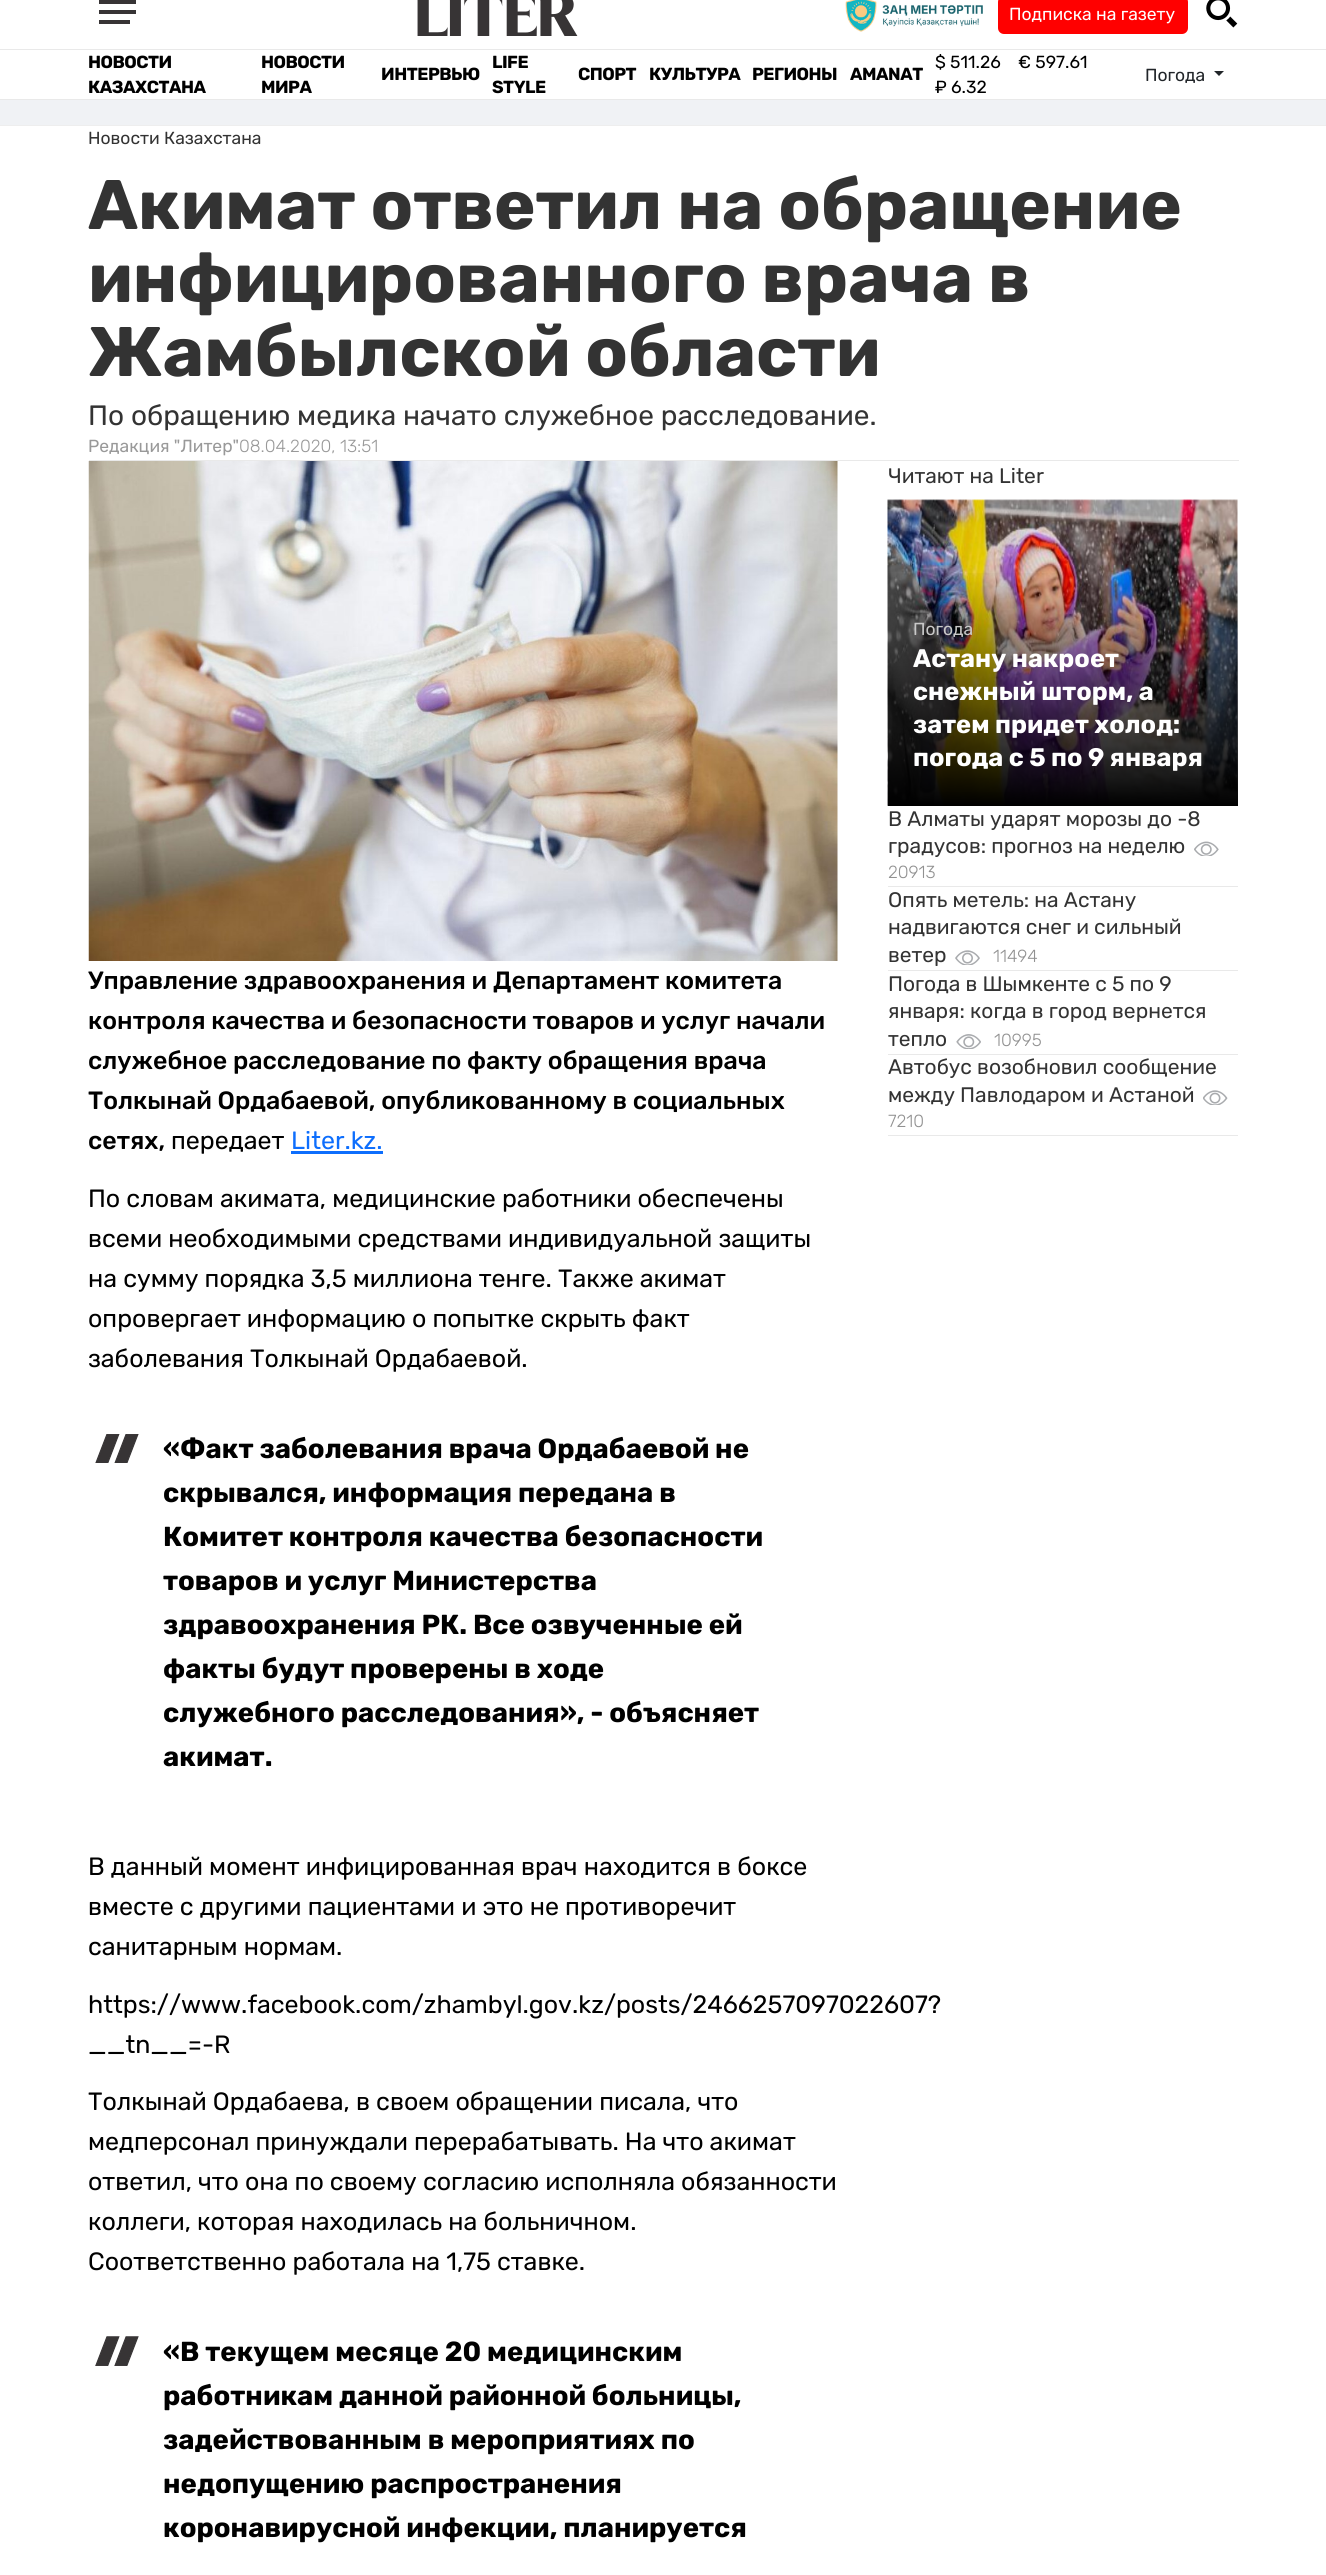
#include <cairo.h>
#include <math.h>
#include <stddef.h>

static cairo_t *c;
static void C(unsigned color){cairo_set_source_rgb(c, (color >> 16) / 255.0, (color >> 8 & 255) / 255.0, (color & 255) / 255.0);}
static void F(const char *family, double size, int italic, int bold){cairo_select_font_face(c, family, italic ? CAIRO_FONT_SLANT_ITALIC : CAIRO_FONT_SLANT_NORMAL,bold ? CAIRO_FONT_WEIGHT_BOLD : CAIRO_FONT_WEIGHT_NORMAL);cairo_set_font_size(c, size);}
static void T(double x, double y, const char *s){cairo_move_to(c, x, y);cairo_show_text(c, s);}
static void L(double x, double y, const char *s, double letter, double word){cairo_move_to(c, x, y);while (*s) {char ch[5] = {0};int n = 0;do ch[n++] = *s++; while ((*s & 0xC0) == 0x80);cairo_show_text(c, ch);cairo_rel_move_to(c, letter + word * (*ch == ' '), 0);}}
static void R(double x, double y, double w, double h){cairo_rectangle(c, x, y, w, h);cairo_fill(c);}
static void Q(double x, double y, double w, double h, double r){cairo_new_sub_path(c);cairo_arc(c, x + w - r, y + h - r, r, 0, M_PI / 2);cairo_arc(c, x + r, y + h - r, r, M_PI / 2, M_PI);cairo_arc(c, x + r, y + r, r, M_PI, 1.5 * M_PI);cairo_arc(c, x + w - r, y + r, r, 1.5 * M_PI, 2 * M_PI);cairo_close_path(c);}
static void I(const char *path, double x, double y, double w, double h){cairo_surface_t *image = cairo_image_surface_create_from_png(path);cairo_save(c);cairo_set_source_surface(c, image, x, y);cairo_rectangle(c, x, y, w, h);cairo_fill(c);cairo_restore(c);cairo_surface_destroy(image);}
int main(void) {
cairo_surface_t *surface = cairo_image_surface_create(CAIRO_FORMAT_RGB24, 1326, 2575);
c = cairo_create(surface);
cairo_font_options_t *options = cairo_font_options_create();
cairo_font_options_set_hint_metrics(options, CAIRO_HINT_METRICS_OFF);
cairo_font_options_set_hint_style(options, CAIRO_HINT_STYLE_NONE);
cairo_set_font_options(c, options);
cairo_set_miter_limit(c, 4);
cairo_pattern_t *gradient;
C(0xf0f2f5);
cairo_paint(c);
C(0xffffff);
R(0,0,1326,49);
C(0xe9e9e9);
R(0,49,1326,1);
C(0x373435);
R(99,0,37,4);
R(99,10,37,4);
R(99,20,31,4);
I("1.png",417,0,161,36);
I("2.png",845,0,138,32);
C(0xff0000);
Q(998,-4,190,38,6);
cairo_fill(c);
F("Rubik",17.5,0,0);
C(0xffffff);
T(1009,20,"Подписка на газету");
I("3.png",1206,0,32,28);
R(0,50,1326,49);
C(0xe9e9e9);
R(0,99,1326,1);
F("Rubik",17.5,0,1);
C(0x000000);
L(88,68,"НОВОСТИ",-.5,0);
L(88,93,"КАЗАХСТАНА",-.5,0);
L(261,68,"НОВОСТИ",-.5,0);
L(261,93,"МИРА",-.5,0);
L(381,80,"ИНТЕРВЬЮ",-.5,0);
L(492,68,"LIFE",-.5,0);
L(492,93,"STYLE",-.5,0);
L(578,80,"СПОРТ",-.5,0);
L(649,80,"КУЛЬТУРА",-.5,0);
L(752,80,"РЕГИОНЫ",-.5,0);
L(850,80,"AMANAT",-.5,0);
F("Rubik",17.5,0,0);
T(935,68,"$ 511.26");
T(1018,68,"€ 597.61");
T(935,93,"₽ 6.32");
C(0x212529);
T(1145,81,"Погода");
cairo_new_path(c);
cairo_move_to(c,1214,71);
cairo_line_to(c,1224,71);
cairo_line_to(c,1219,76);
cairo_close_path(c);
cairo_fill(c);
C(0xeeeeee);
R(0,125,1326,1);
C(0xffffff);
R(0,126,1326,2449);
C(0xe9e9e9);
R(89,460,1150,1);
C(0x333333);
T(88,144,"Новости Казахстана");
F("Rubik",70,0,1);
T(88,229,"Акимат ответил на обращение");
T(88,302,"инфицированного врача в");
T(88,376,"Жамбылской области");
F("Rubik",28,0,0);
T(88,425,"По обращению медика начато служебное расследование.");
F("Rubik",17.5,0,0);
C(0x999999);
T(88,452,"Редакция \"Литер\"");
F("Rubik Light",17.5,0,0);
T(239,452,"08.04.2020, 13:51");
F("Rubik",21,0,0);
C(0x333333);
T(888,483,"Читают на Liter");
I("4.png",887,499,351,307);
gradient = cairo_pattern_create_linear(1063,568,1063,806);
cairo_pattern_add_color_stop_rgba(gradient,0,0,0,0,0);
cairo_pattern_add_color_stop_rgba(gradient,1,0,0,0,1);
cairo_set_source(c,gradient);
cairo_pattern_destroy(gradient);
R(888,573,350,233);
F("Rubik",17.5,0,0);
C(0xc9c9c9);
T(913,635,"Погода");
F("Rubik",25.4,0,1);
C(0xffffff);
T(913,667,"Астану накроет");
T(913,700,"снежный шторм, а");
T(913,733,"затем придет холод:");
T(913,766,"погода с 5 по 9 января");
C(0xe9e9e9);
R(888,886,350,1);
F("Rubik",21,0,0);
C(0x333333);
T(888,826,"В Алматы ударят морозы до -8");
T(888,853,"градусов: прогноз на неделю");
I("5.png",1194,841,25,15);
F("Rubik Light",17.5,0,0);
C(0x919191);
T(888,878,"20913");
C(0xe9e9e9);
R(888,970,350,1);
F("Rubik",21,0,0);
C(0x333333);
T(888,907,"Опять метель: на Астану");
T(888,934,"надвигаются снег и сильный");
T(888,962,"ветер");
I("6.png",955,950,25,15);
F("Rubik Light",17.5,0,0);
C(0x919191);
T(993,962,"11494");
C(0xe9e9e9);
R(888,1054,350,1);
F("Rubik",21,0,0);
C(0x333333);
T(888,991,"Погода в Шымкенте с 5 по 9");
T(888,1018,"января: когда в город вернется");
T(888,1046,"тепло");
I("7.png",956,1034,25,15);
F("Rubik Light",17.5,0,0);
C(0x919191);
T(994,1046,"10995");
C(0xe9e9e9);
R(888,1135,350,1);
F("Rubik",21,0,0);
C(0x333333);
T(888,1074,"Автобус возобновил сообщение");
T(888,1102,"между Павлодаром и Астаной");
I("8.png",1203,1090,25,15);
F("Rubik Light",17.5,0,0);
C(0x919191);
T(888,1127,"7210");
I("9.png",88,461,750,500);
F("Rubik Medium",25,0,0);
C(0x000000);
T(88,989,"Управление здравоохранения и Департамент комитета");
T(88,1029,"контроля качества и безопасности товаров и услуг начали");
T(88,1069,"служебное расследование по факту обращения врача");
T(88,1109,"Толкынай Ордабаевой, опубликованному в социальных");
T(88,1149,"сетях,");
F("Rubik",25,0,0);
T(171,1149,"передает");
C(0x0d6efd);
T(291,1149,"Liter.kz.");
R(291,1151,92,3);
C(0x000000);
T(88,1207,"По словам акимата, медицинские работники обеспечены");
T(88,1247,"всеми необходимыми средствами индивидуальной защиты");
T(88,1287,"на сумму порядка 3,5 миллиона тенге. Также акимат");
T(88,1327,"опровергает информацию о попытке скрыть факт");
T(88,1367,"заболевания Толкынай Ордабаевой.");
I("10.png",95,1434,44,29);
F("Rubik",27.5,0,1);
T(163,1458,"«Факт заболевания врача Ордабаевой не");
T(163,1502,"скрывался, информация передана в");
T(163,1546,"Комитет контроля качества безопасности");
T(163,1590,"товаров и услуг Министерства");
T(163,1634,"здравоохранения РК. Все озвученные ей");
T(163,1678,"факты будут проверены в ходе");
T(163,1722,"служебного расследования», - объясняет");
T(163,1766,"акимат.");
F("Rubik",25,0,0);
T(88,1875,"В данный момент инфицированная врач находится в боксе");
T(88,1915,"вместе с другими пациентами и это не противоречит");
T(88,1955,"санитарным нормам.");
T(88,2013,"https://www.facebook.com/zhambyl.gov.kz/posts/2466257097022607?");
T(88,2053,"__tn__=-R");
T(88,2110,"Толкынай Ордабаева, в своем обращении писала, что");
T(88,2150,"медперсонал принуждали перерабатывать. На что акимат");
T(88,2190,"ответил, что она по своему согласию исполняла обязанности");
T(88,2230,"коллеги, которая находилась на больничном.");
T(88,2270,"Соответственно работала на 1,75 ставке.");
I("11.png",95,2336,44,30);
F("Rubik",27.5,0,1);
T(163,2361,"«В текущем месяце 20 медицинским");
T(163,2405,"работникам данной районной больницы,");
T(163,2449,"задействованным в мероприятиях по");
T(163,2493,"недопущению распространения");
T(163,2537,"коронавирусной инфекции, планируется");
cairo_surface_write_to_png(surface, "o.png");
cairo_font_options_destroy(options);
cairo_destroy(c);
cairo_surface_destroy(surface);
return 0;
}
